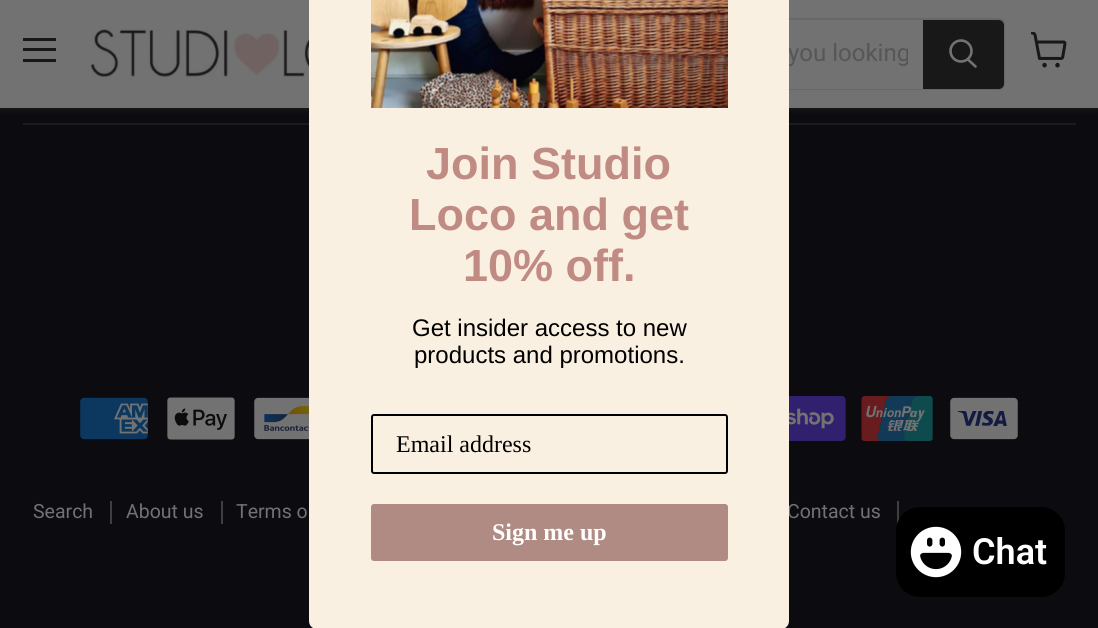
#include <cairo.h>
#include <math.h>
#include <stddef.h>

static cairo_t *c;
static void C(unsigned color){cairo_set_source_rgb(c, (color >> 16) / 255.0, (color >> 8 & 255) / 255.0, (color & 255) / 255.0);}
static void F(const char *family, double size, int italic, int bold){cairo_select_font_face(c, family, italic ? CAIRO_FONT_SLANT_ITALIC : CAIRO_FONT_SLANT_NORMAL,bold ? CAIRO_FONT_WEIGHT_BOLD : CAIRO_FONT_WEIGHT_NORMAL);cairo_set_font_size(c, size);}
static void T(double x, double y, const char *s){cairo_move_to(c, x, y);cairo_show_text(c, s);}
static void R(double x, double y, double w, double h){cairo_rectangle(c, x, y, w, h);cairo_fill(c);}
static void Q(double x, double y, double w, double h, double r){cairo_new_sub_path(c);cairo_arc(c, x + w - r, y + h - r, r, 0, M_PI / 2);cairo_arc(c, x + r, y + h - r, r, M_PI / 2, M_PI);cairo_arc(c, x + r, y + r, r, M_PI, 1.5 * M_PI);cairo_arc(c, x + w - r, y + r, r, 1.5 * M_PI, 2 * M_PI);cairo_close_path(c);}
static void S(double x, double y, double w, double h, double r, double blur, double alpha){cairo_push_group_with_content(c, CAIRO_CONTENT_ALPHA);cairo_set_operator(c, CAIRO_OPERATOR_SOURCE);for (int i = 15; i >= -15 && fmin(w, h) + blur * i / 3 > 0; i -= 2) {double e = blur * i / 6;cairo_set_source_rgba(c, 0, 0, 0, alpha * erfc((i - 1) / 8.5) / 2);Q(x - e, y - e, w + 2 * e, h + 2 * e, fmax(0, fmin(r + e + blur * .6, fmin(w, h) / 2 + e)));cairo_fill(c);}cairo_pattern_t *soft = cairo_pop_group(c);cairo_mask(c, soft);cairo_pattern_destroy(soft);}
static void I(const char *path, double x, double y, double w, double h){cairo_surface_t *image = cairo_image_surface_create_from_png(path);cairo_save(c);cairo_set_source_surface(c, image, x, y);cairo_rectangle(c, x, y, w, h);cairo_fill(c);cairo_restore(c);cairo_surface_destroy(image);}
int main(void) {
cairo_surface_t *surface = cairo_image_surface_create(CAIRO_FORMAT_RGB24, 1098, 628);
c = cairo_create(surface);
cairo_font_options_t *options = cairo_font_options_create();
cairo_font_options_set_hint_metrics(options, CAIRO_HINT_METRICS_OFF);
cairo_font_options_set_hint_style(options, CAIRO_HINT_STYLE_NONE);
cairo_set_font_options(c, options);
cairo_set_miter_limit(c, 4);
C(0x0c0c10);
cairo_paint(c);
C(0x3f3f3f);
S(0,2,1098,108,0,3,.25);
C(0x727272);
R(0,0,1098,108);
C(0x181818);
R(23,38,33,3);
R(23,48,33,3);
R(23,59,33,3);
I("1.png",91,29,218,49);
Q(478,19,526,70,5);
cairo_set_source_rgba(c,0.247,0.247,0.247,0.2);
cairo_stroke(c);
C(0x727272);
R(789,88,134,1);
cairo_save(c);
cairo_rectangle(c,687,39,221,29);
cairo_clip(c);
F("Roboto",24,0,0);
C(0x565656);
T(788,61,"you looking");
cairo_restore(c);
C(0x181818);
cairo_new_path(c);
cairo_move_to(c,924,21);
cairo_line_to(c,999,21);
cairo_curve_to(c,1001,21,1003,23,1003,25);
cairo_line_to(c,1003,84);
cairo_curve_to(c,1003,86,1001,88,999,88);
cairo_line_to(c,924,88);
cairo_close_path(c);
cairo_fill_preserve(c);
cairo_stroke(c);
cairo_new_path(c);
cairo_move_to(c,975.5,66.5);
cairo_line_to(c,968,59.5);
C(0x727272);
cairo_set_line_width(c,2.6);
cairo_set_line_cap(c,CAIRO_LINE_CAP_ROUND);
cairo_stroke(c);
cairo_arc(c,961,51,10.5,0,2 * M_PI);
cairo_set_line_cap(c,CAIRO_LINE_CAP_BUTT);
cairo_stroke(c);
I("2.png",1031,32,36,36);
C(0x1c1b1f);
R(23,123,1053,2);
F("Roboto",19.5,0,0);
C(0x727272);
T(787,518,"Contact us");
C(0xfaf0e1);
cairo_new_path(c);
cairo_move_to(c,309,0);
cairo_line_to(c,789,0);
cairo_line_to(c,789,621);
cairo_curve_to(c,789,625.5,785.5,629,781,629);
cairo_line_to(c,317,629);
cairo_curve_to(c,312.5,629,309,625.5,309,621);
cairo_close_path(c);
cairo_fill(c);
I("3.png",371,0,357,108);
F("Liberation Sans",45,0,1);
C(0xc08b83);
T(426,179,"Join Studio");
T(409,230,"Loco and get");
T(463,281,"10% off.");
F("Liberation Sans",24,0,0);
C(0x000000);
T(412,336,"Get insider access to new");
T(414,363,"products and promotions.");
Q(372,415,355,58,2);
cairo_set_line_width(c,2);
cairo_stroke(c);
F("Liberation Serif",24,0,0);
T(396,452,"Email address");
C(0xb08b83);
Q(371,504,357,57,3);
cairo_fill(c);
F("Liberation Serif",24,0,1);
C(0xffffff);
T(492,540,"Sign me up");
I("4.png",80,397,68,43);
I("5.png",166,396,70,45);
I("6.png",254,397,55,43);
I("7.png",789,396,57,45);
I("8.png",861,396,72,45);
I("9.png",950,397,68,43);
C(0x3f3f41);
R(110,501,2,23);
F("Roboto",19.5,0,0);
C(0x727272);
T(33,518,"Search");
C(0x3f3f41);
R(221,501,2,23);
C(0x727272);
T(126,518,"About us");
T(236,518,"Terms o");
C(0x3f3f41);
R(897,501,2,23);
C(0x000000);
Q(896,507,169,90,24);
cairo_fill(c);
I("10.png",910,526,52,52);
F("Roboto SemiBold",36,0,0);
C(0xffffff);
T(972,564,"Chat");
cairo_surface_write_to_png(surface, "o.png");
cairo_font_options_destroy(options);
cairo_destroy(c);
cairo_surface_destroy(surface);
return 0;
}
